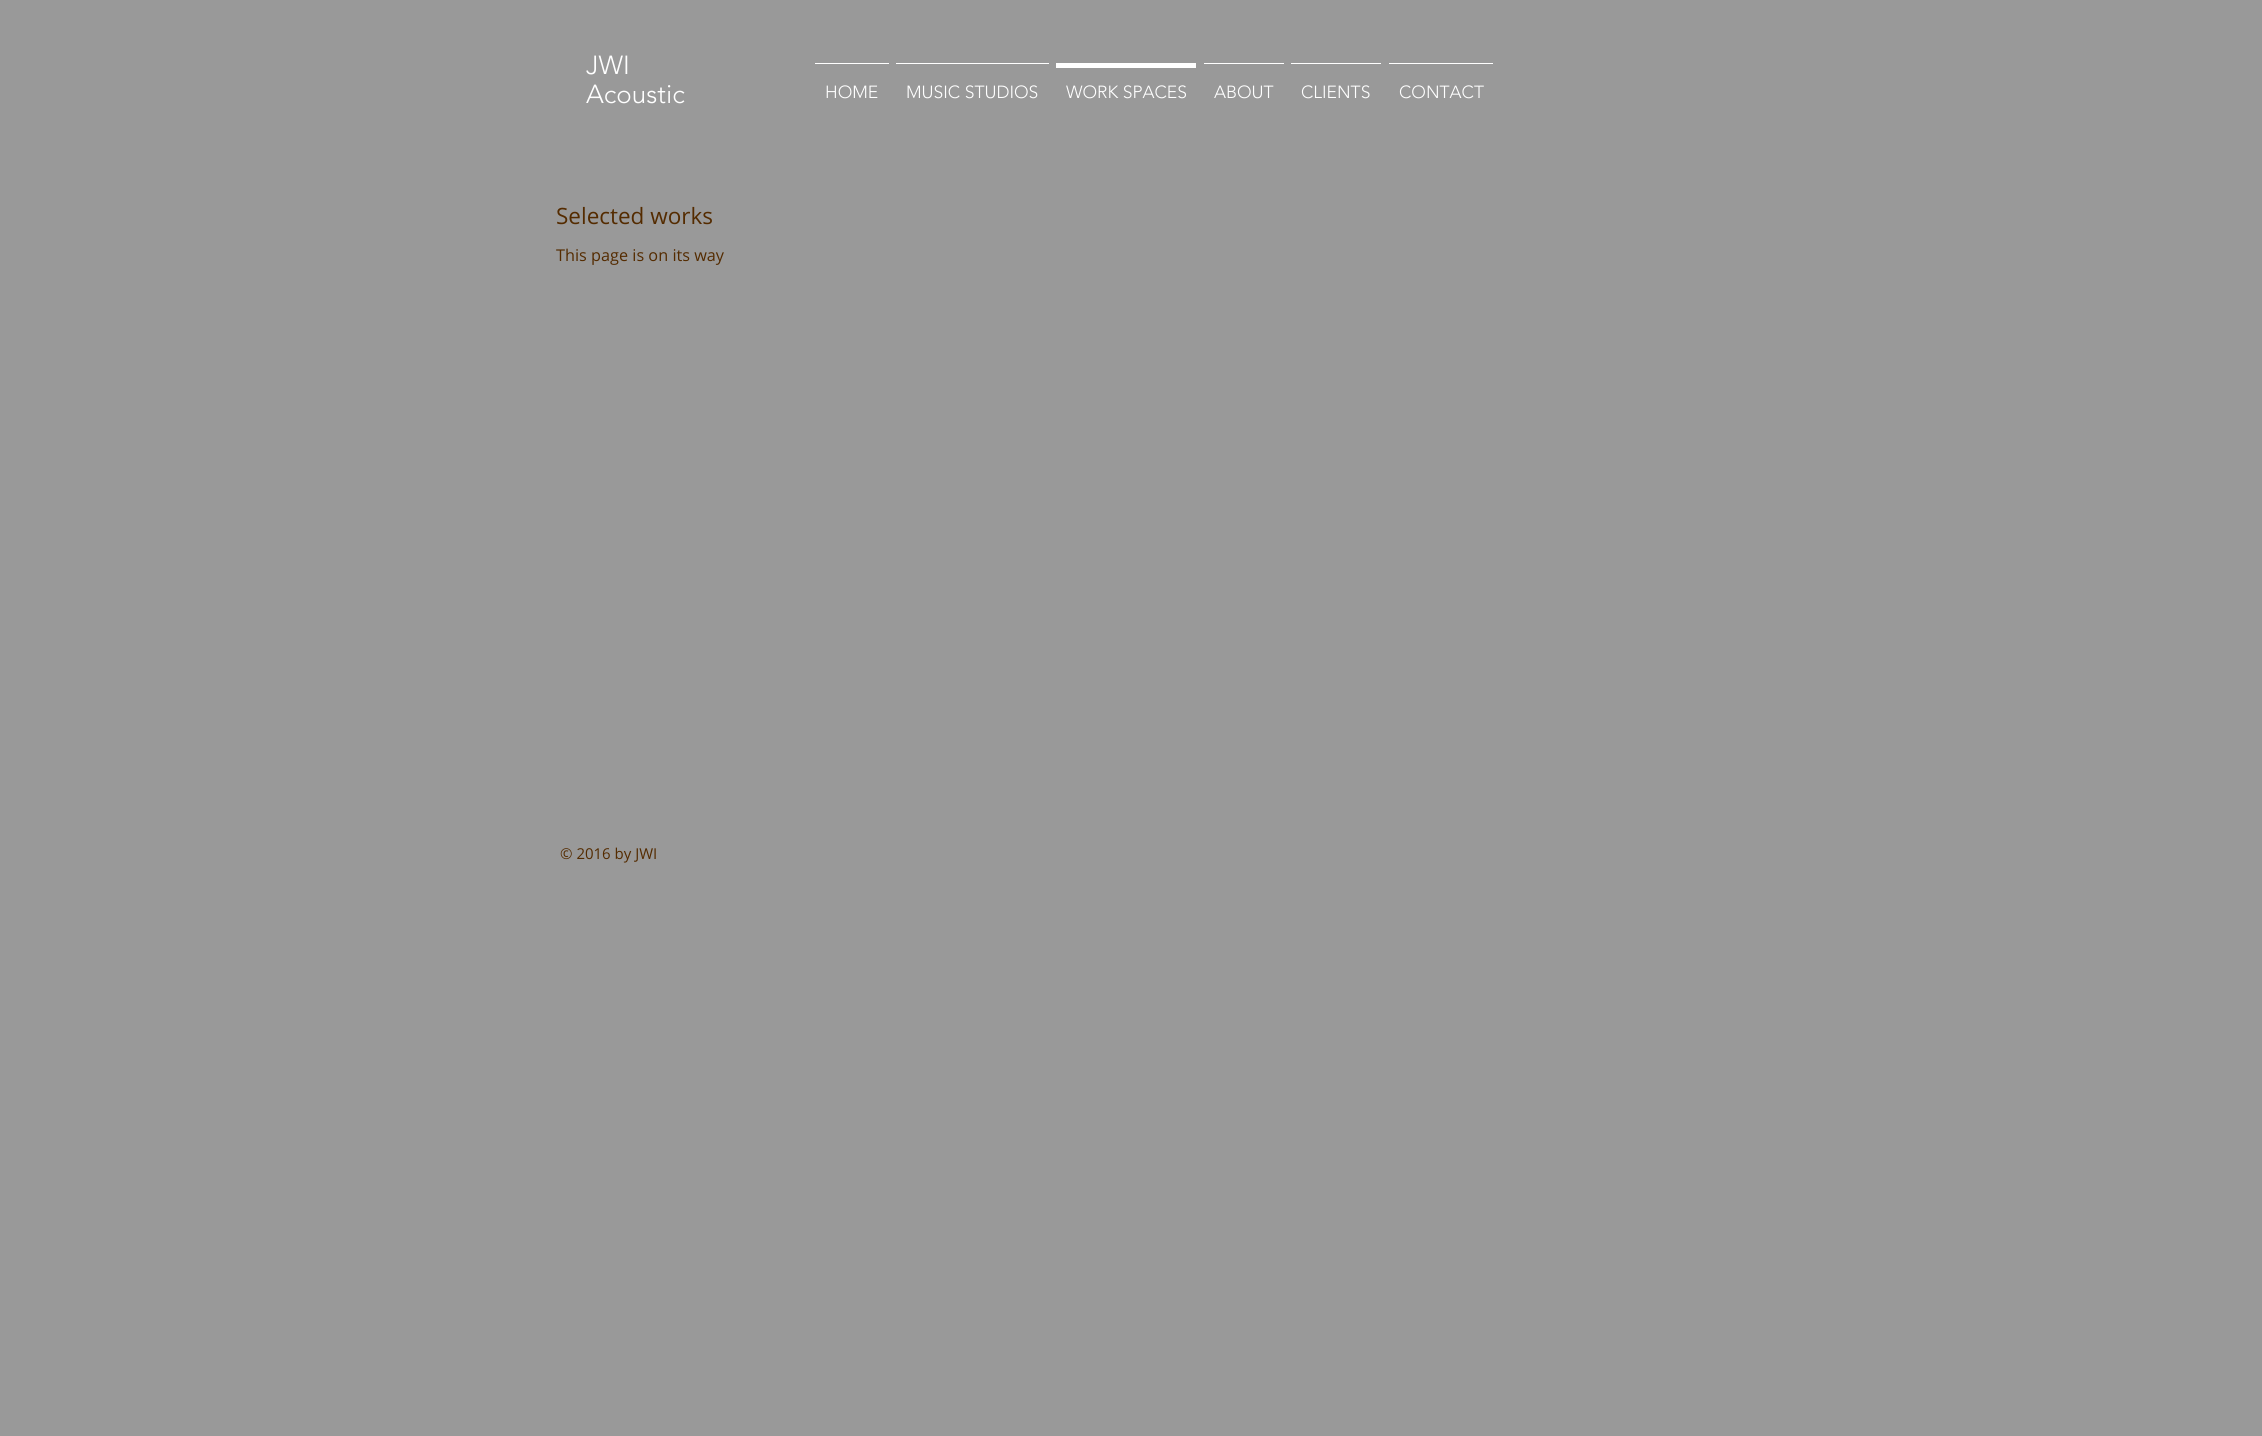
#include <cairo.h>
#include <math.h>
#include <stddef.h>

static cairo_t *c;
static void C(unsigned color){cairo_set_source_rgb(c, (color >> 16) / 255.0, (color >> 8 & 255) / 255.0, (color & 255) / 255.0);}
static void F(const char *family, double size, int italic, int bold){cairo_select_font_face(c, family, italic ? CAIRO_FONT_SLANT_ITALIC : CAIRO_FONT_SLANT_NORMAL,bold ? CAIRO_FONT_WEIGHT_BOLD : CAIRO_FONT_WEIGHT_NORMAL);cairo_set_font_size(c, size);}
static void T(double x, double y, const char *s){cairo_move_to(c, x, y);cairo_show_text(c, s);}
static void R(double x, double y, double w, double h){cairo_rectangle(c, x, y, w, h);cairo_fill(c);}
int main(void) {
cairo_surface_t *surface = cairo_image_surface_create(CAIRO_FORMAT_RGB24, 2262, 1436);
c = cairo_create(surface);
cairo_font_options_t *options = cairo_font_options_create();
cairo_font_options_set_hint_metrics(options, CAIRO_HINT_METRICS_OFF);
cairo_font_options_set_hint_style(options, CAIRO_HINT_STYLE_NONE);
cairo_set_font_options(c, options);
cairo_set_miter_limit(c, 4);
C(0x999999);
cairo_paint(c);
F("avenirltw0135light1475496 Light",26,0,0);
C(0xffffff);
T(586,74,"JWI");
T(586,103,"Acoustic");
R(815,63,74,1);
F("avenirltw0135light1475496 Light",17.5,0,0);
T(825,98,"HOME");
R(896,63,153,1);
T(906,98,"MUSIC STUDIOS");
R(1056,63,140,5);
T(1066,98,"WORK SPACES");
R(1204,63,80,1);
T(1214,98,"ABOUT");
R(1291,63,90,1);
T(1301,98,"CLIENTS");
R(1389,63,104,1);
T(1399,98,"CONTACT");
F("Open Sans",22.5,0,0);
C(0x542b00);
T(556,224,"Selected works");
F("Open Sans",16.25,0,0);
T(556,261,"This page is on its way");
F("Open Sans",15,0,0);
T(560,859,"© 2016 by JWI");
cairo_surface_write_to_png(surface, "o.png");
cairo_font_options_destroy(options);
cairo_destroy(c);
cairo_surface_destroy(surface);
return 0;
}
